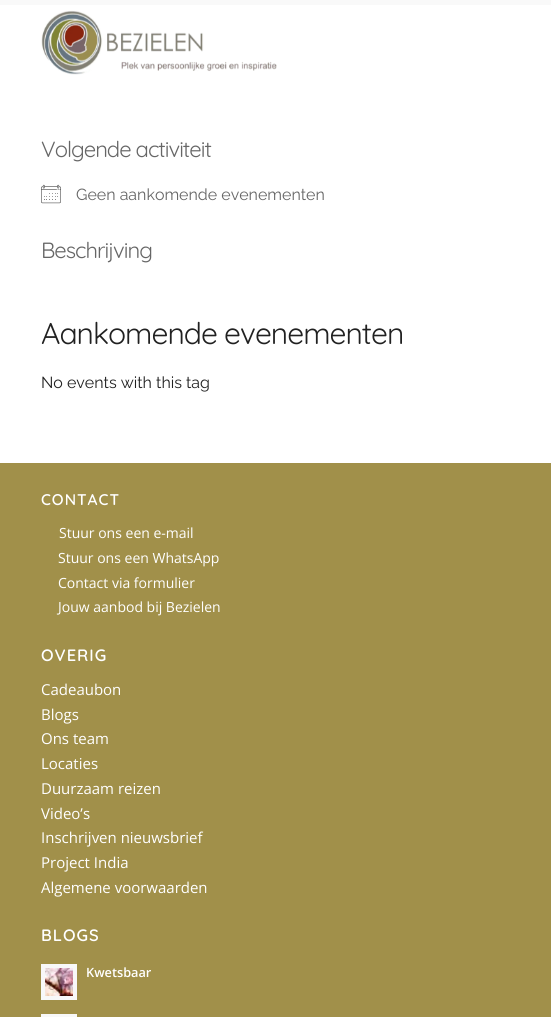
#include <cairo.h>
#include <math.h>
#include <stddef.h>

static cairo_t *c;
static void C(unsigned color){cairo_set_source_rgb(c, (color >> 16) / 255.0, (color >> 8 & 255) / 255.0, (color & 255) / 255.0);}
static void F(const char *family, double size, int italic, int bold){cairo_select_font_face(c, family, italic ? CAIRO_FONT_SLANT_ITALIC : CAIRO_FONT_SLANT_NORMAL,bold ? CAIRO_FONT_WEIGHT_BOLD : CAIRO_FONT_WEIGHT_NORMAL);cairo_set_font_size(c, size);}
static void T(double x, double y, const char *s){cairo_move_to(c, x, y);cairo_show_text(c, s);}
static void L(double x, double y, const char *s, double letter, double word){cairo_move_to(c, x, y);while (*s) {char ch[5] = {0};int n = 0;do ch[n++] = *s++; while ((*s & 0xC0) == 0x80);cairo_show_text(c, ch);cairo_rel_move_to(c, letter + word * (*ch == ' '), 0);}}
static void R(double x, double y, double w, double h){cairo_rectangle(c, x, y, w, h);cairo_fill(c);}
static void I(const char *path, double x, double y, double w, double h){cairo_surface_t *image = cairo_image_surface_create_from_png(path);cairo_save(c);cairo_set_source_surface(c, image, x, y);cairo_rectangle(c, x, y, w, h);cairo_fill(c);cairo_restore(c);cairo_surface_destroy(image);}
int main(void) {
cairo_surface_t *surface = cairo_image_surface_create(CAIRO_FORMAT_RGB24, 551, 1017);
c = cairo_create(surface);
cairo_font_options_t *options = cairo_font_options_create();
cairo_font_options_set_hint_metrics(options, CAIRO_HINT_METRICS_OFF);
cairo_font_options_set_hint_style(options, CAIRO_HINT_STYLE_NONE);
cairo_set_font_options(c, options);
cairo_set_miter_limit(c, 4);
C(0xf9f9f9);
cairo_paint(c);
C(0xffffff);
R(0,5,551,458);
I("1.png",41,10,236,65);
F("Quicksand",22,0,0);
C(0x666666);
L(41,157,"Volgende activiteit",-1,0);
I("2.png",41,184,20,20);
F("Raleway",16,0,0);
T(76,200,"Geen aankomende evenementen");
F("Quicksand",22,0,0);
L(41,258,"Beschrijving",-1,0);
F("Quicksand",30,0,0);
C(0x212121);
L(41,344,"Aankomende evenementen",-1,0);
F("Raleway",16,0,0);
T(41,388,"No events with this tag");
C(0xa1904a);
R(0,463,551,554);
F("Quicksand SemiBold",15.5,0,0);
C(0xffffff);
L(41,505,"CONTACT",1,0);
F("Open Sans",14,0,0);
T(59,538,"Stuur ons een e-mail");
T(58,563,"Stuur ons een WhatsApp");
T(58,588,"Contact via formulier");
T(58,612,"Jouw aanbod bij Bezielen");
F("Quicksand SemiBold",16.5,0,0);
L(41,661,"OVERIG",1,0);
F("Open Sans",15,0,0);
T(41,695,"Cadeaubon");
T(41,720,"Blogs");
T(41,744,"Ons team");
T(41,769,"Locaties");
T(41,794,"Duurzaam reizen");
T(41,819,"Video’s");
T(41,843,"Inschrijven nieuwsbrief");
T(41,868,"Project India");
T(41,893,"Algemene voorwaarden");
F("Quicksand SemiBold",16.5,0,0);
L(41,941,"BLOGS",1,0);
C(0xf8f8f8);
R(41,964,36,36);
I("3.png",45,968,28,28);
F("Open Sans SemiBold",12.75,0,0);
C(0xffffff);
T(86,977,"Kwetsbaar");
C(0xf8f8f8);
R(41,1014,36,3);
cairo_surface_write_to_png(surface, "o.png");
cairo_font_options_destroy(options);
cairo_destroy(c);
cairo_surface_destroy(surface);
return 0;
}
